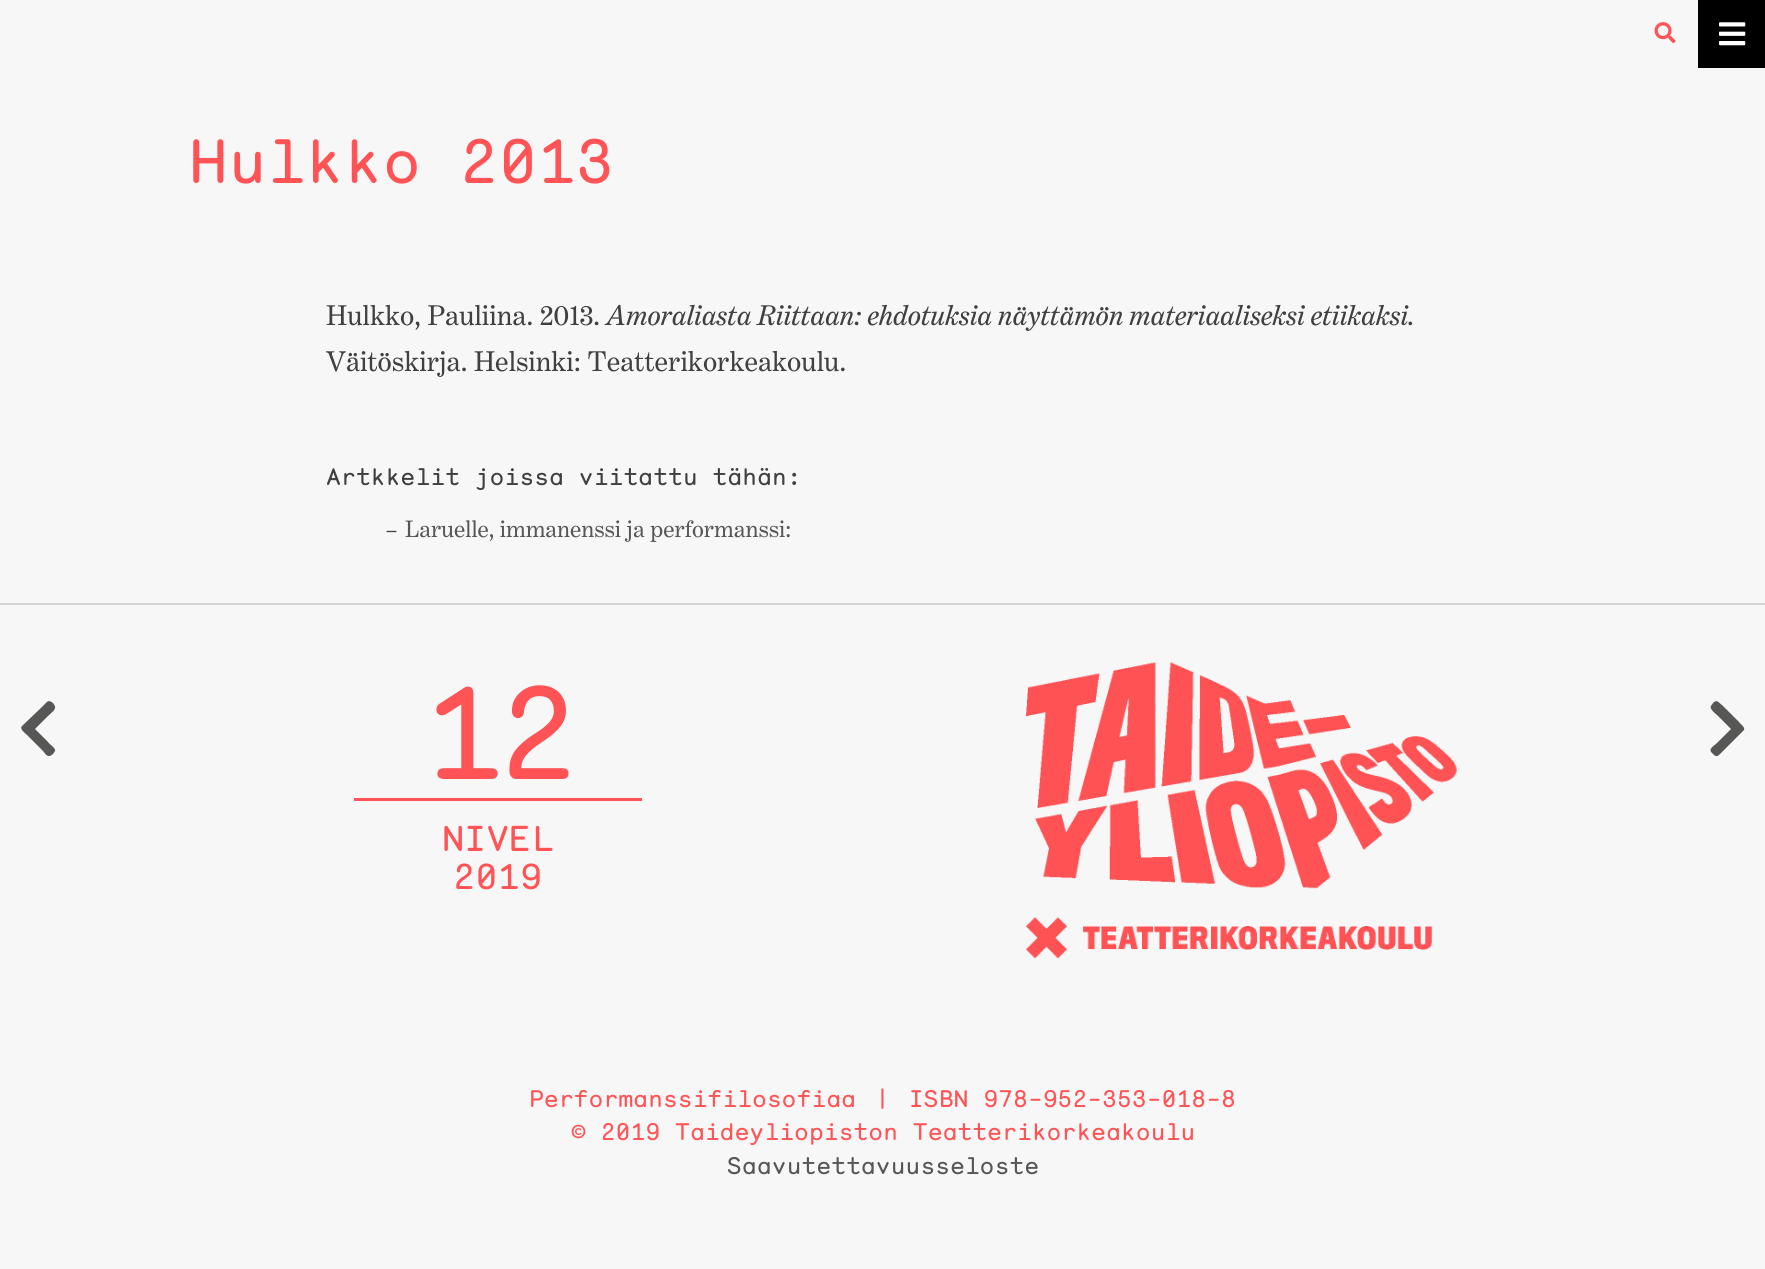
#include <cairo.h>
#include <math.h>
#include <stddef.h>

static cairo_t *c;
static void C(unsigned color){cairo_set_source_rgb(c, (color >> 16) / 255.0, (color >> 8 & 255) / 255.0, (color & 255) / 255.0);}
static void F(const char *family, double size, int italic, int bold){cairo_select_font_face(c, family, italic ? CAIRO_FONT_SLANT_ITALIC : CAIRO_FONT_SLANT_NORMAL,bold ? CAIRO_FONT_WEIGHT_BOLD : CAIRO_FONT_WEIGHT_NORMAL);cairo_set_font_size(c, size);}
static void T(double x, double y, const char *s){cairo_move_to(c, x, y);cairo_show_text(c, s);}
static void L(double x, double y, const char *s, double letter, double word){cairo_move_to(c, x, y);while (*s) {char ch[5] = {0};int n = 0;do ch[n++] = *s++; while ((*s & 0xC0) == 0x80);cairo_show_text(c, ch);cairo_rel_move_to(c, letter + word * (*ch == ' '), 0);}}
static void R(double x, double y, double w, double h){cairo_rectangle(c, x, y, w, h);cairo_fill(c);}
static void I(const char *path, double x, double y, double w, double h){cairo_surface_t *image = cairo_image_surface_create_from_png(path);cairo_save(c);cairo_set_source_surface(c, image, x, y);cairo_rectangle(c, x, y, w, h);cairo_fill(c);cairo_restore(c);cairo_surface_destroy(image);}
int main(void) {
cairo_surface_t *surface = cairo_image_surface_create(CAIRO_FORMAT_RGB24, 1765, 1269);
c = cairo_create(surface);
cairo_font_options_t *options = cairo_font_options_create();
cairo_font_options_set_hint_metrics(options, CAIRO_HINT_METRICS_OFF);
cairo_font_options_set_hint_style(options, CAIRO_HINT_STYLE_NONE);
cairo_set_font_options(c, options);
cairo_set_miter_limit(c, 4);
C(0xf7f7f7);
cairo_paint(c);
I("1.png",1654,22,22,22);
C(0x000000);
R(1698,0,67,68);
I("2.png",1719,22,27,24);
F("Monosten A",62.5,0,0);
C(0xff5356);
T(189,183,"Hulkko 2013");
F("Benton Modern",28.8,0,0);
C(0x404040);
T(326,325,"Hulkko, Pauliina. 2013.");
F("Benton Modern",28.8,1,0);
T(606,325,"Amoraliasta Riittaan: ehdotuksia näyttämön materiaaliseksi etiikaksi");
F("Benton Modern",28.8,0,0);
T(1407,325,".");
T(326,371,"Väitöskirja. Helsinki: Teatterikorkeakoulu.");
F("Monosten A",24,0,0);
T(326,485,"Artkkelit joissa viitattu tähän:");
F("Benton Modern",24,0,0);
T(386,537,"–");
C(0x575756);
T(405,537,"Laruelle, immanenssi ja performanssi:");
cairo_new_path(c);
cairo_move_to(c,22,726);
cairo_line_to(c,43,706);
cairo_curve_to(c,47,702,48,699,53,703);
cairo_curve_to(c,58,709,53,711,48,716);
cairo_line_to(c,35,729);
cairo_line_to(c,48,742);
cairo_curve_to(c,49,744,56,748,55,751);
cairo_line_to(c,53,754);
cairo_curve_to(c,48,758,47,756,43,751);
cairo_line_to(c,27,735);
cairo_curve_to(c,25,733,19,729,22,726);
cairo_close_path(c);
cairo_fill(c);
cairo_new_path(c);
cairo_move_to(c,1743,731);
cairo_line_to(c,1723,751);
cairo_curve_to(c,1718,756,1717,758,1713,754);
cairo_curve_to(c,1707,749,1713,747,1718,742);
cairo_line_to(c,1731,729);
cairo_line_to(c,1718,716);
cairo_curve_to(c,1716,714,1709,709,1711,706);
cairo_line_to(c,1713,703);
cairo_curve_to(c,1717,699,1718,702,1723,706);
cairo_line_to(c,1739,722);
cairo_curve_to(c,1740,724,1747,728,1743,731);
cairo_close_path(c);
cairo_fill(c);
C(0xd3d3d3);
R(0,603,1765,2);
C(0xff5356);
R(354,798,288,3);
F("Monosten A",132,0,0);
L(423,779,"12",-7,0);
F("Monosten A",36,0,0);
T(442,851,"NIVEL");
T(453,889,"2019");
I("3.png",1026,662,431,297);
F("Monosten A",24,0,0);
T(529,1107,"Performanssifilosofiaa");
T(875,1107,"|");
T(909,1107,"ISBN 978-952-353-018-8");
T(571,1140,"© 2019 Taideyliopiston Teatterikorkeakoulu");
C(0x575756);
T(727,1174,"Saavutettavuusseloste");
cairo_surface_write_to_png(surface, "o.png");
cairo_font_options_destroy(options);
cairo_destroy(c);
cairo_surface_destroy(surface);
return 0;
}
